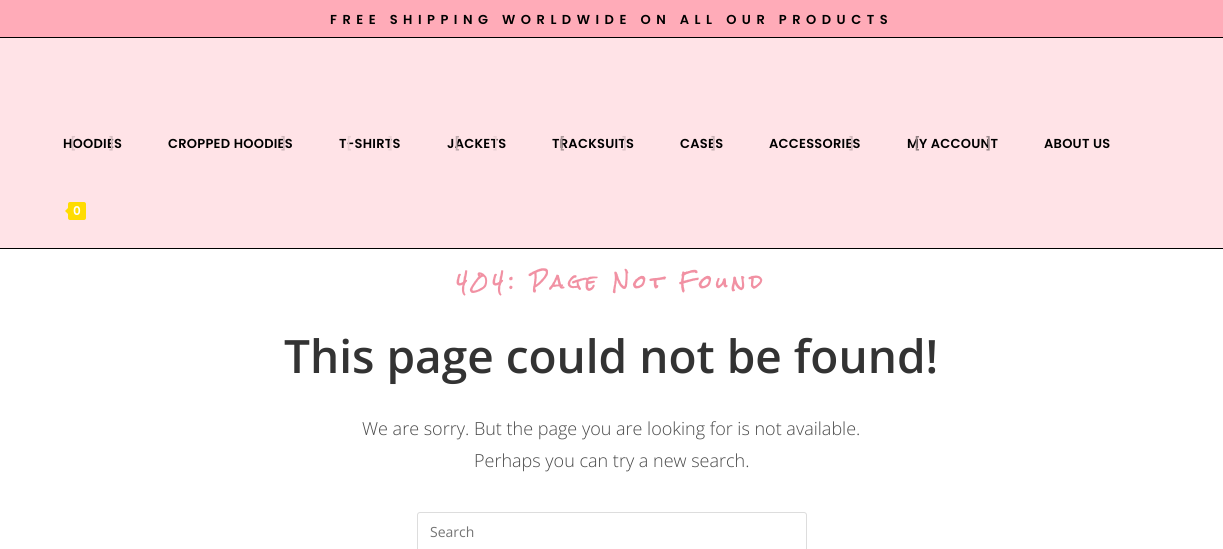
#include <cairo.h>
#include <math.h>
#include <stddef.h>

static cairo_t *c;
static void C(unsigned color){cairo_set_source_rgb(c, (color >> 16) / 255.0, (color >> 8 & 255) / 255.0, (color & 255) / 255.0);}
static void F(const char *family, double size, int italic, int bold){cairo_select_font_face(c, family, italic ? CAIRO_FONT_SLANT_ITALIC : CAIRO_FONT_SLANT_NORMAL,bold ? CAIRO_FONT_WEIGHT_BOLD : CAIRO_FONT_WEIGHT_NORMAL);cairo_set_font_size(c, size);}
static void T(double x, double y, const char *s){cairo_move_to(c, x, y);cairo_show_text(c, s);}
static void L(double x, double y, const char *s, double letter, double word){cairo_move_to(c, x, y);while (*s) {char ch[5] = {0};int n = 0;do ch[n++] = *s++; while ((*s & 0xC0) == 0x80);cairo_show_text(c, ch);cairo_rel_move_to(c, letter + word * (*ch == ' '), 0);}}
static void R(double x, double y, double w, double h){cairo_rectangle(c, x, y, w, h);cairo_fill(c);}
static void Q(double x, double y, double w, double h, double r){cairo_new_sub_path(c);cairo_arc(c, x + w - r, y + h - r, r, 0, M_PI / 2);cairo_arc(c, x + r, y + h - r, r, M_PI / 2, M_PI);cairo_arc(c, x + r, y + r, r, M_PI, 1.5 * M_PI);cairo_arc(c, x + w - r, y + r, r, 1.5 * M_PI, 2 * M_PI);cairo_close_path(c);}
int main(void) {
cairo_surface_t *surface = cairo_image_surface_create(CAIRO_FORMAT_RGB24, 1223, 549);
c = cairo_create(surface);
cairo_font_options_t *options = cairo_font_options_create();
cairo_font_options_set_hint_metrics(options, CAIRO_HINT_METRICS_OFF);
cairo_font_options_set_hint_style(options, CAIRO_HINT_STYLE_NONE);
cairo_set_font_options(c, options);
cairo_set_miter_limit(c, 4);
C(0xffffff);
cairo_paint(c);
C(0xffabb8);
R(0,0,1223,37);
C(0x000000);
R(0,37,1223,1);
F("Poppins SemiBold",13,0,0);
L(330,24,"FREE SHIPPING WORLDWIDE ON ALL OUR PRODUCTS",5.5,0);
C(0xffe3e7);
R(0,38,1223,210);
C(0x000000);
R(0,248,1223,1);
L(63,148,"HOODIES",.25,0);
C(0xddc4c8);
L(70,148,"[",.25,0);
C(0xd5bec1);
L(108,148,"]",.25,0);
C(0x000000);
L(168,148,"CROPPED HOODIES",.25,0);
C(0xceb7ba);
L(280,148,"]",.25,0);
C(0x000000);
L(339,148,"T-SHIRTS",.25,0);
C(0xead1d4);
L(346,148,"[",.25,0);
L(387,148,"]",.25,0);
C(0x000000);
L(447,148,"JACKETS",.25,0);
C(0xbca8ab);
L(454,148,"[",.25,0);
C(0xead1d4);
L(492,148,"]",.25,0);
C(0x000000);
L(552,148,"TRACKSUITS",.25,0);
C(0xa89698);
L(559,148,"[",.25,0);
C(0xddc4c8);
L(621,148,"]",.25,0);
C(0x000000);
L(680,148,"CASES",.25,0);
C(0xc8b2b5);
L(710,148,"]",.25,0);
C(0x000000);
L(769,148,"ACCESSORIES",.25,0);
C(0xceb7ba);
L(848,148,"]",.25,0);
C(0x000000);
L(907,148,"MY ACCOUNT",.25,0);
C(0x8e7e80);
L(914,148,"[",.25,0);
C(0x9b8a8c);
L(985,148,"]",.25,0);
C(0x000000);
L(1044,148,"ABOUT US",.25,0);
C(0xffdc01);
Q(68,202,18,18,2);
cairo_fill(c);
cairo_new_path(c);
cairo_move_to(c,70,206);
cairo_line_to(c,70,216);
cairo_line_to(c,65,211);
cairo_close_path(c);
cairo_fill(c);
F("Poppins SemiBold",12,0,0);
C(0xffffff);
T(73,215,"0");
F("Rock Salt",18,0,1);
C(0xf191a3);
L(456,289,"404: Page Not Found",4.4,0);
F("Open Sans SemiBold",46,0,0);
C(0x333333);
T(284,373,"This page could not be found!");
F("Open Sans Light",18,0,0);
C(0x4a4a4a);
T(362,435,"We are sorry. But the page you are looking for is not available.");
T(474,467,"Perhaps you can try a new search.");
Q(417.5,512.5,389,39,2.5);
C(0xdddddd);
cairo_set_line_width(c,1);
cairo_stroke(c);
F("Open Sans",14,0,0);
C(0x757575);
T(430,537,"Search");
cairo_surface_write_to_png(surface, "o.png");
cairo_font_options_destroy(options);
cairo_destroy(c);
cairo_surface_destroy(surface);
return 0;
}
